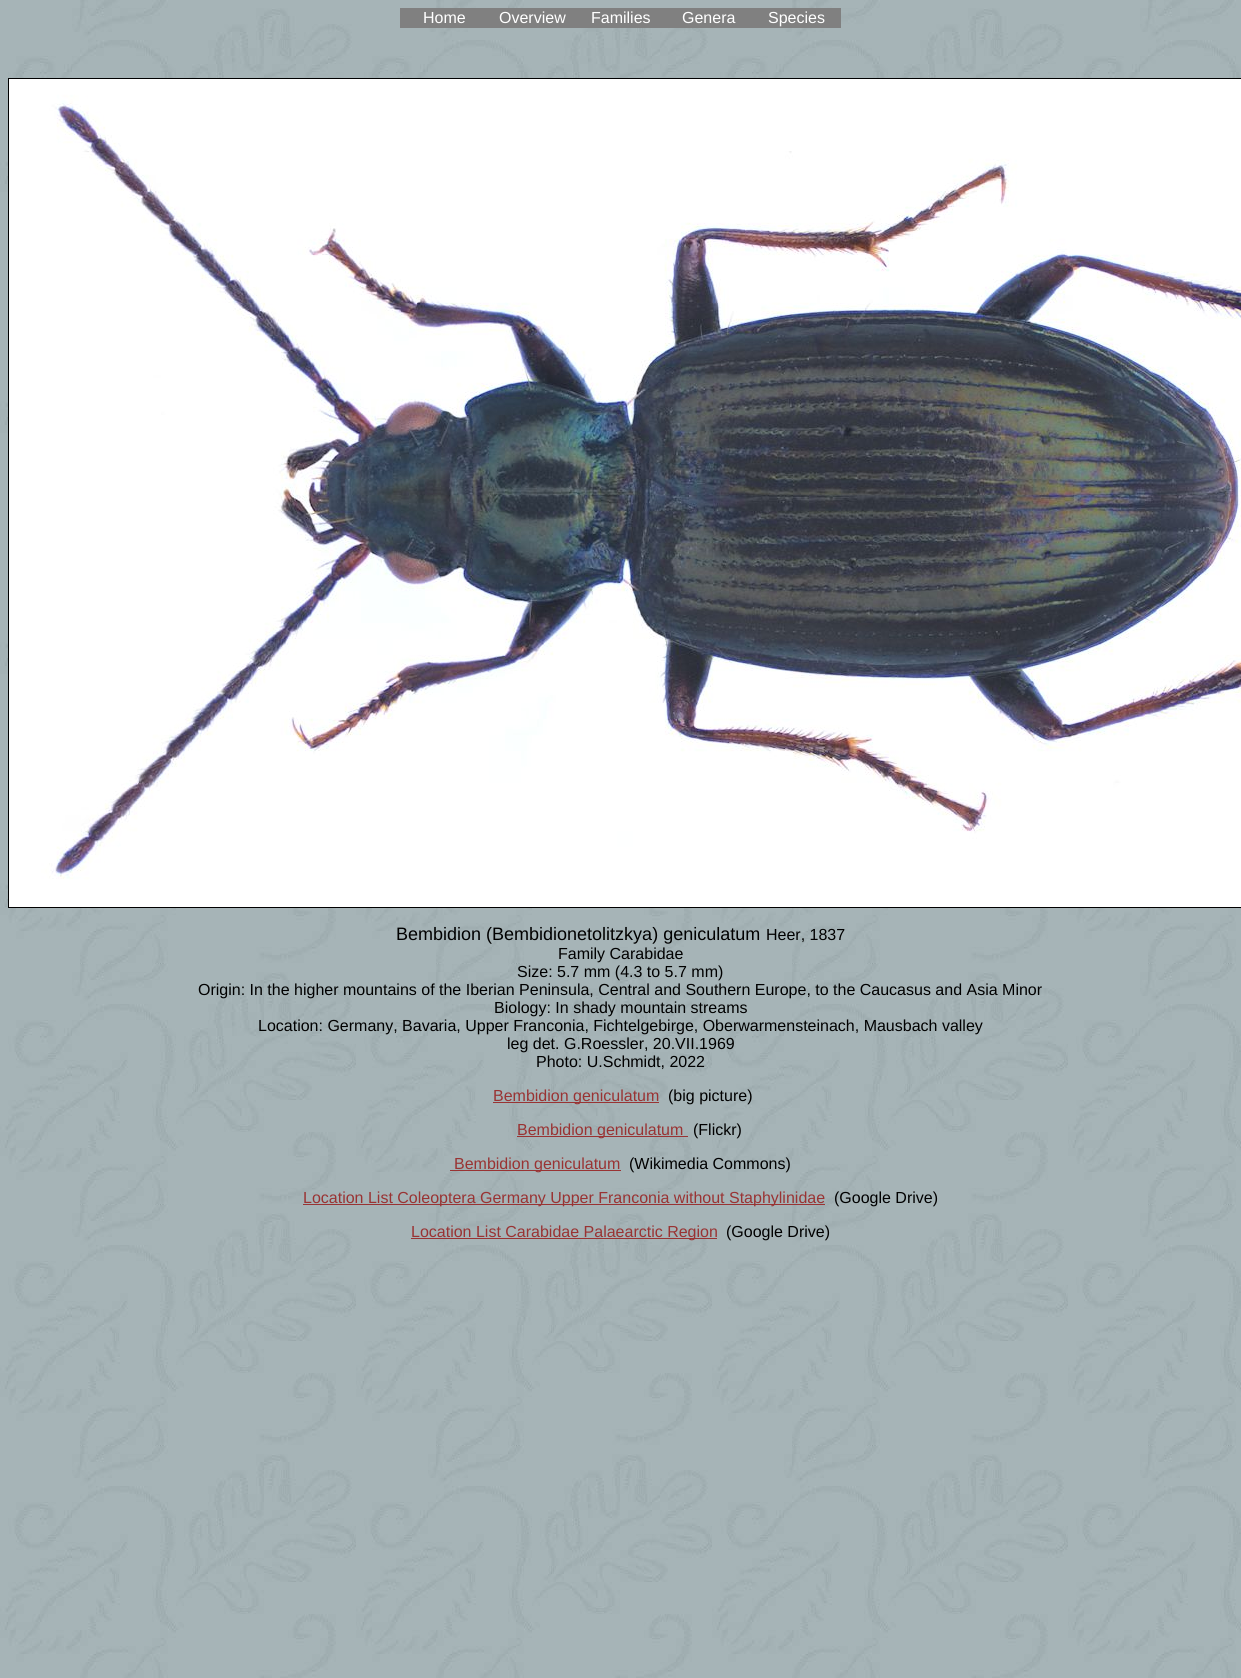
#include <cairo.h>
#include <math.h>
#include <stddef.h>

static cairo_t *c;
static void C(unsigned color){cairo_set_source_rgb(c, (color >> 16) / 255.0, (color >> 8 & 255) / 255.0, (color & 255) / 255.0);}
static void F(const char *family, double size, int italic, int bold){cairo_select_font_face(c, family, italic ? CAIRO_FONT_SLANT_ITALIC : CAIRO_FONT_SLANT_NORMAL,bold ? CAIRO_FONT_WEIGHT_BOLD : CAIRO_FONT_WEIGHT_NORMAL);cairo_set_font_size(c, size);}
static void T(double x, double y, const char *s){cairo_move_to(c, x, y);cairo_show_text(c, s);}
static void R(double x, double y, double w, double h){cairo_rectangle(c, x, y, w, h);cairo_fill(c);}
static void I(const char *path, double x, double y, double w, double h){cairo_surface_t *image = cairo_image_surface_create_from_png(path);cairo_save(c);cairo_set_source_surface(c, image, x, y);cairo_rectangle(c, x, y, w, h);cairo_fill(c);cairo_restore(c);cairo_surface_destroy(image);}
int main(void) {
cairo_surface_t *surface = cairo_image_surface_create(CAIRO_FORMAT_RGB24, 1241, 1678);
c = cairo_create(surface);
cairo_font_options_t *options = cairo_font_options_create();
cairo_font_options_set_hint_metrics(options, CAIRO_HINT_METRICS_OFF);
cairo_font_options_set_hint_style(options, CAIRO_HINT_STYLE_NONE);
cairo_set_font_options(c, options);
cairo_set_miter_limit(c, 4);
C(0xffffff);
cairo_paint(c);
I("1.png",0,0,1241,1678);
C(0x808080);
R(400,8,441,20);
F("Liberation Sans",16,0,0);
C(0xffffff);
T(423,23,"Home");
T(499,23,"Overview");
T(591,23,"Families");
T(682,23,"Genera");
T(768,23,"Species");
cairo_rectangle(c,8.5,78.5,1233,829);
C(0x000000);
cairo_set_line_width(c,1);
cairo_stroke(c);
I("2.png",9,79,1232,828);
F("Liberation Sans",18,0,0);
T(396,940,"Bembidion (Bembidionetolitzkya) geniculatum");
F("Liberation Sans",16,0,0);
T(766,940,"Heer, 1837");
T(558,959,"Family Carabidae");
T(517,977,"Size: 5.7 mm (4.3 to 5.7 mm)");
T(198,995,"Origin: In the higher mountains of the Iberian Peninsula, Central and Southern Europe, to the Caucasus and Asia Minor");
T(494,1013,"Biology: In shady mountain streams");
T(258,1031,"Location: Germany, Bavaria, Upper Franconia, Fichtelgebirge, Oberwarmensteinach, Mausbach valley");
T(507,1049,"leg det. G.Roessler, 20.VII.1969");
T(536,1067,"Photo: U.Schmidt, 2022");
C(0x993333);
R(493,1102,166,1);
T(493,1101,"Bembidion geniculatum");
C(0x000000);
T(668,1101,"(big picture)");
C(0x993333);
R(517,1136,171,1);
T(517,1135,"Bembidion geniculatum");
C(0x000000);
T(693,1135,"(Flickr)");
C(0x993333);
R(450,1170,171,1);
T(454,1169,"Bembidion geniculatum");
C(0x000000);
T(629,1169,"(Wikimedia Commons)");
C(0x993333);
R(303,1204,522,1);
T(303,1203,"Location List Coleoptera Germany Upper Franconia without Staphylinidae");
C(0x000000);
T(834,1203,"(Google Drive)");
C(0x993333);
R(411,1238,306,1);
T(411,1237,"Location List Carabidae Palaearctic Region");
C(0x000000);
T(726,1237,"(Google Drive)");
cairo_surface_write_to_png(surface, "o.png");
cairo_font_options_destroy(options);
cairo_destroy(c);
cairo_surface_destroy(surface);
return 0;
}
